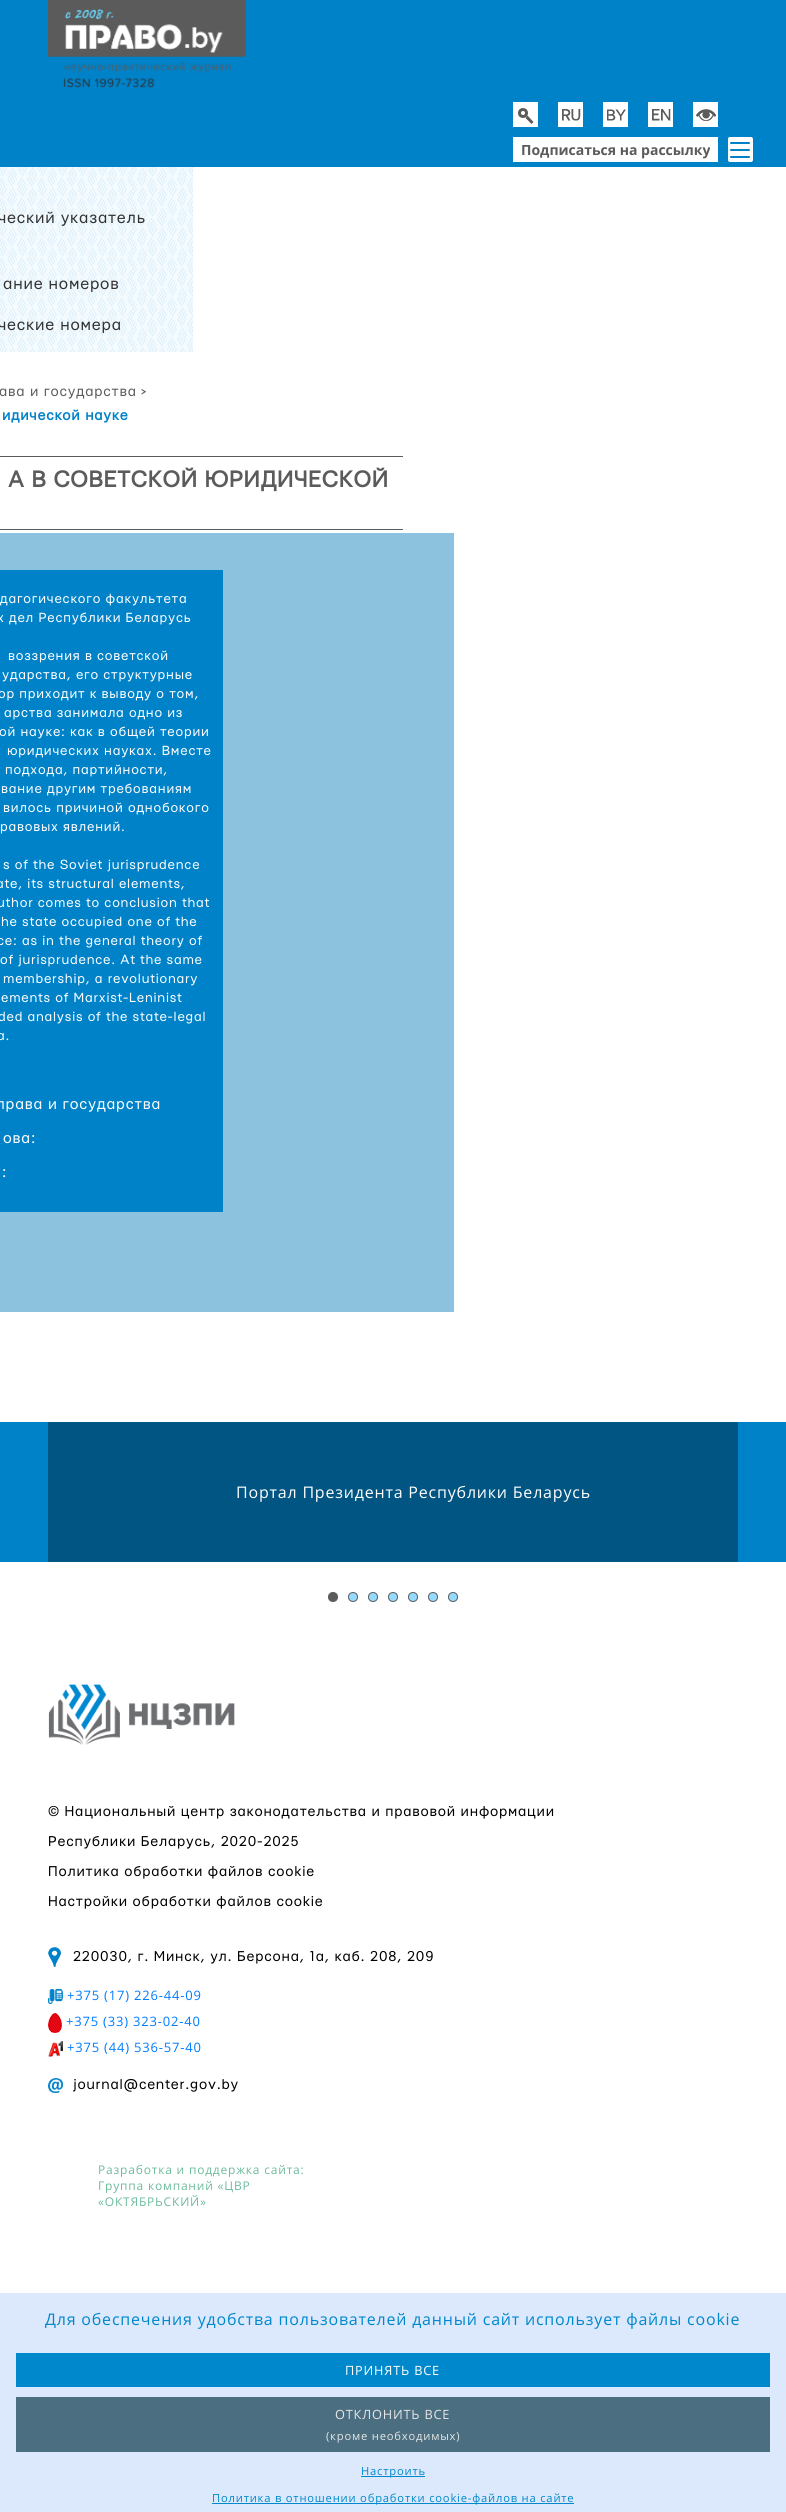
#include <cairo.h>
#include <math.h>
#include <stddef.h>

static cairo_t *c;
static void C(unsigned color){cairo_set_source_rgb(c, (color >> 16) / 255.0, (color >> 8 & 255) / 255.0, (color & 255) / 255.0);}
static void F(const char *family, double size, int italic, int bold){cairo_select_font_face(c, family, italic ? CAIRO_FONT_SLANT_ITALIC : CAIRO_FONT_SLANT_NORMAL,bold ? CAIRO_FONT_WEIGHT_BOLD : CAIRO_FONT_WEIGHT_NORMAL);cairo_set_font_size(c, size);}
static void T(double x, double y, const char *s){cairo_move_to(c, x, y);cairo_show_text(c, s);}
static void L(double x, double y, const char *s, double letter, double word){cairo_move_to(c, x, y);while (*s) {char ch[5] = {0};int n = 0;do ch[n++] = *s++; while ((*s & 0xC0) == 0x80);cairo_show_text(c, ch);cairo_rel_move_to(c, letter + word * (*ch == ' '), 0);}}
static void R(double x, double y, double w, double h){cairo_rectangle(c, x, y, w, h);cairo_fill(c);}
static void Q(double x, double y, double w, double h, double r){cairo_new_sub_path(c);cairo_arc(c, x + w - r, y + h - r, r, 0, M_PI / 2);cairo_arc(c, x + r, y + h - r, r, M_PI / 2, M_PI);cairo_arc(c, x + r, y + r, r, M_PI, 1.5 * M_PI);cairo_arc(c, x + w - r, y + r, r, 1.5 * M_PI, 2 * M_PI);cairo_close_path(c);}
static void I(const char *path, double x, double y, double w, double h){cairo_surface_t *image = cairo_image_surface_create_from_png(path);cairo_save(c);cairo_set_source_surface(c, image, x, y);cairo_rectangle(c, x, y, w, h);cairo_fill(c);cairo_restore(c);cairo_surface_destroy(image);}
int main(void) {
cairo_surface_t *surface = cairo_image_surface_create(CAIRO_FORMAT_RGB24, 786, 2512);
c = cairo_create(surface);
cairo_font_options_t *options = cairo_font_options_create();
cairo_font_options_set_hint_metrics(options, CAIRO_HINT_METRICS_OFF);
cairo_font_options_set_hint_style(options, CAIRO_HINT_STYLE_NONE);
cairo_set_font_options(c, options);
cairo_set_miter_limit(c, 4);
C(0xffffff);
cairo_paint(c);
C(0x0082c9);
R(0,0,786,167);
I("1.png",48,0,198,88);
C(0xffffff);
R(513,102,25,25);
cairo_arc(c,523,113,3.5,0,2 * M_PI);
C(0x5b5b5b);
cairo_set_line_width(c,3);
cairo_stroke(c);
cairo_new_path(c);
cairo_move_to(c,525.5,118);
cairo_line_to(c,527.5,115.5);
cairo_line_to(c,533.5,122);
cairo_line_to(c,531.5,124);
cairo_close_path(c);
cairo_fill(c);
C(0xffffff);
R(558,102,25,25);
I("2.png",562,109,19,12);
R(603,102,25,25);
I("3.png",607,109,19,12);
R(648,102,25,25);
I("4.png",652,109,19,12);
R(693,102,25,25);
I("5.png",696,109,20,12);
R(513,137,205,25);
F("Open Sans",14,0,1);
C(0x5b5b5b);
T(521,155,"Подписаться на рассылку");
C(0xffffff);
Q(728,137,25,25,2);
cairo_fill(c);
C(0x0082c9);
Q(730,142,20,2,1);
cairo_fill(c);
Q(730,149,20,2,1);
cairo_fill(c);
Q(730,156,20,2,1);
cairo_fill(c);
I("6.png",0,167,193,185);
F("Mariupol",17,0,0);
C(0x333333);
L(-2,223,"ческий указатель",.8,0);
L(3,289,"ание номеров",.8,0);
L(-2,330,"ческие номера",.8,0);
F("Mariupol",15,0,0);
C(0x5b5b5b);
L(-1,396,"ава и государства >",.8,0);
F("Mariupol",15,0,1);
C(0x0082c9);
L(2,420,"идической науке",.8,0);
C(0x5b5b5b);
R(0,456,403,1);
R(0,529,403,1);
F("Mariupol",24,0,1);
L(8,487,"А В СОВЕТСКОЙ ЮРИДИЧЕСКОЙ",.8,0);
C(0x8dc2de);
R(0,533,454,779);
C(0x0082c9);
R(0,570,223,642);
F("Mariupol",14,0,0);
C(0xffffff);
L(0,603,"дагогического факультета",.8,0);
L(-3,622,"х дел Республики Беларусь",.8,0);
L(8,660,"воззрения в советской",.8,0);
L(2,679,"ударства, его структурные",.8,0);
L(-2,698,"ор приходит к выводу о том,",.8,0);
L(4,717,"арства занимала одно из",.8,0);
L(-1,736,"ой науке: как в общей теории",.8,0);
L(7,755,"юридических науках. Вместе",.8,0);
L(5,774,"подхода, партийности,",.8,0);
L(1,793,"вание другим требованиям",.8,0);
L(3,812,"вилось причиной однобокого",.8,0);
L(0,831,"равовых явлений.",.8,0);
L(3,869,"s of the Soviet jurisprudence",.8,0);
L(-4,888,"ate, its structural elements,",.8,0);
L(-3,907,"uthor comes to conclusion that",.8,0);
L(1,926,"he state occupied one of the",.8,0);
L(-3,945,"ce: as in the general theory of",.8,0);
L(0,964,"of jurisprudence. At the same",.8,0);
L(3,983,"membership, a revolutionary",.8,0);
L(1,1002,"ements of Marxist-Leninist",.8,0);
L(-2,1021,"ded analysis of the state-legal",.8,0);
L(-3,1040,"a.",.8,0);
F("Mariupol",16,0,0);
L(-4,1109,"права и государства",.8,0);
L(3,1143,"ова:",.8,0);
L(2,1177,":",.8,0);
C(0x0082c9);
R(0,1422,786,140);
C(0x005583);
R(48,1422,690,140);
F("Open Sans",16,0,0);
C(0xffffff);
L(236,1498,"Портал Президента Республики Беларусь",.8,0);
C(0x5b5b5b);
cairo_new_path(c);
cairo_arc(c,333,1597,4.5,0,2 * M_PI);
cairo_fill_preserve(c);
cairo_set_line_width(c,1);
cairo_stroke(c);
C(0x95daff);
cairo_arc(c,353,1597,4.5,0,2 * M_PI);
cairo_fill_preserve(c);
C(0x5b5b5b);
cairo_stroke(c);
C(0x95daff);
cairo_arc(c,373,1597,4.5,0,2 * M_PI);
cairo_fill_preserve(c);
C(0x5b5b5b);
cairo_stroke(c);
C(0x95daff);
cairo_arc(c,393,1597,4.5,0,2 * M_PI);
cairo_fill_preserve(c);
C(0x5b5b5b);
cairo_stroke(c);
C(0x95daff);
cairo_arc(c,413,1597,4.5,0,2 * M_PI);
cairo_fill_preserve(c);
C(0x5b5b5b);
cairo_stroke(c);
C(0x95daff);
cairo_arc(c,433,1597,4.5,0,2 * M_PI);
cairo_fill_preserve(c);
C(0x5b5b5b);
cairo_stroke(c);
C(0x95daff);
cairo_arc(c,453,1597,4.5,0,2 * M_PI);
cairo_fill_preserve(c);
C(0x5b5b5b);
cairo_stroke(c);
I("7.png",48,1684,187,61);
F("Mariupol",15,0,0);
C(0x000000);
L(48,1816,"© Национальный центр законодательства и правовой информации",.8,0);
L(48,1846,"Республики Беларусь, 2020-2025",.8,0);
L(48,1876,"Политика обработки файлов cookie",.8,0);
L(48,1906,"Настройки обработки файлов cookie",.8,0);
I("8.png",48,1947,13,20);
L(73,1961,"220030, г. Минск, ул. Берсона, 1а, каб. 208, 209",.8,0);
I("9.png",48,1989,15,15);
F("Open Sans",13,0,0);
C(0x007bff);
L(67,2000,"+375 (17) 226-44-09",.8,0);
I("10.png",48,2013,14,20);
L(66,2026,"+375 (33) 323-02-40",.8,0);
I("11.png",48,2041,15,16);
L(67,2052,"+375 (44) 536-57-40",.8,0);
I("12.png",48,2078,15,15);
F("Mariupol",15,0,0);
C(0x000000);
L(73,2089,"journal@center.gov.by",.8,0);
F("Open Sans",12,0,0);
C(0x6cbb9b);
L(98,2174,"Разработка и поддержка сайта:",.8,0);
L(98,2190,"Группа компаний «ЦВР",.8,0);
L(98,2206,"«ОКТЯБРЬСКИЙ»",.8,0);
C(0xdce8fb);
R(0,2293,786,219);
F("Open Sans",16,0,0);
C(0x0088cc);
L(45,2325,"Для обеспечения удобства пользователей данный сайт использует файлы cookie",.8,0);
R(16,2353,754,34);
F("Open Sans",12.75,0,0);
C(0xffffff);
L(345,2375,"ПРИНЯТЬ ВСЕ",.8,0);
C(0x4b6f81);
R(16,2397,754,55);
C(0xe5e5e5);
L(335,2419,"ОТКЛОНИТЬ ВСЕ",.8,0);
F("Open Sans",11.2,0,0);
L(326,2440,"(кроме необходимых)",.8,0);
C(0x0088cc);
R(361,2476,64,1);
L(361,2475,"Настроить",.8,0);
R(212,2503,362,1);
L(212,2502,"Политика в отношении обработки cookie-файлов на сайте",.8,0);
cairo_surface_write_to_png(surface, "o.png");
cairo_font_options_destroy(options);
cairo_destroy(c);
cairo_surface_destroy(surface);
return 0;
}
